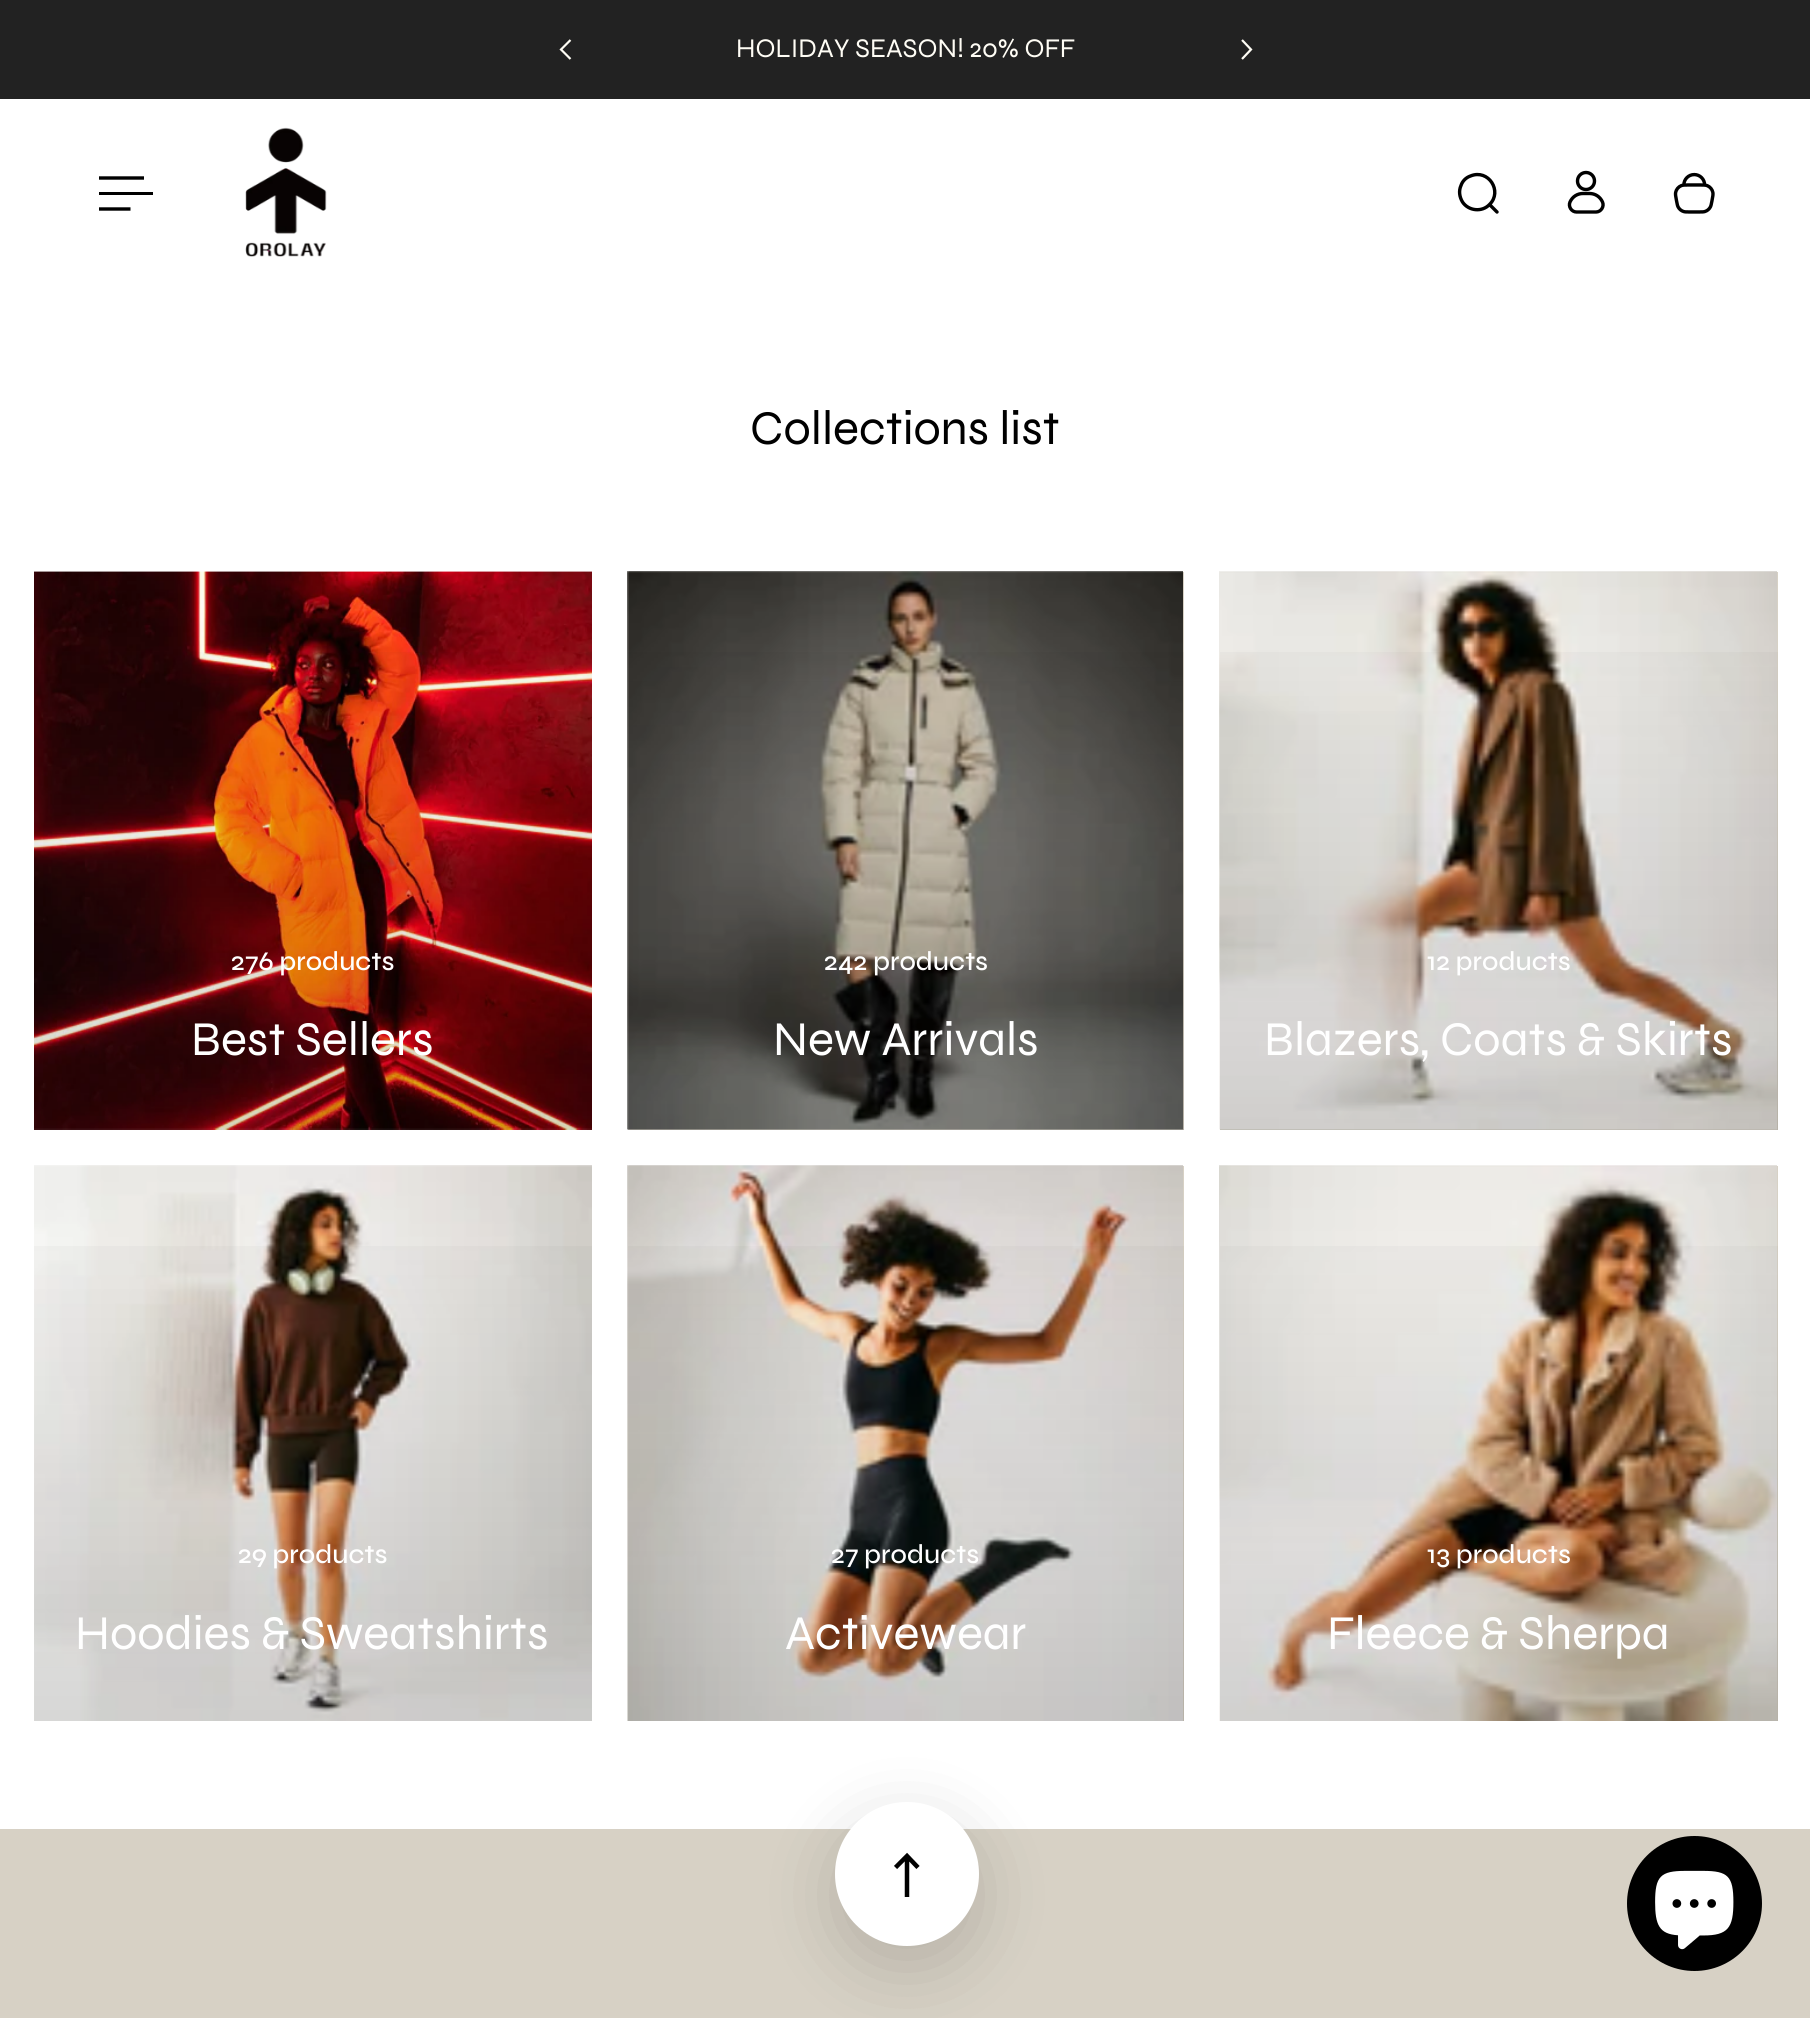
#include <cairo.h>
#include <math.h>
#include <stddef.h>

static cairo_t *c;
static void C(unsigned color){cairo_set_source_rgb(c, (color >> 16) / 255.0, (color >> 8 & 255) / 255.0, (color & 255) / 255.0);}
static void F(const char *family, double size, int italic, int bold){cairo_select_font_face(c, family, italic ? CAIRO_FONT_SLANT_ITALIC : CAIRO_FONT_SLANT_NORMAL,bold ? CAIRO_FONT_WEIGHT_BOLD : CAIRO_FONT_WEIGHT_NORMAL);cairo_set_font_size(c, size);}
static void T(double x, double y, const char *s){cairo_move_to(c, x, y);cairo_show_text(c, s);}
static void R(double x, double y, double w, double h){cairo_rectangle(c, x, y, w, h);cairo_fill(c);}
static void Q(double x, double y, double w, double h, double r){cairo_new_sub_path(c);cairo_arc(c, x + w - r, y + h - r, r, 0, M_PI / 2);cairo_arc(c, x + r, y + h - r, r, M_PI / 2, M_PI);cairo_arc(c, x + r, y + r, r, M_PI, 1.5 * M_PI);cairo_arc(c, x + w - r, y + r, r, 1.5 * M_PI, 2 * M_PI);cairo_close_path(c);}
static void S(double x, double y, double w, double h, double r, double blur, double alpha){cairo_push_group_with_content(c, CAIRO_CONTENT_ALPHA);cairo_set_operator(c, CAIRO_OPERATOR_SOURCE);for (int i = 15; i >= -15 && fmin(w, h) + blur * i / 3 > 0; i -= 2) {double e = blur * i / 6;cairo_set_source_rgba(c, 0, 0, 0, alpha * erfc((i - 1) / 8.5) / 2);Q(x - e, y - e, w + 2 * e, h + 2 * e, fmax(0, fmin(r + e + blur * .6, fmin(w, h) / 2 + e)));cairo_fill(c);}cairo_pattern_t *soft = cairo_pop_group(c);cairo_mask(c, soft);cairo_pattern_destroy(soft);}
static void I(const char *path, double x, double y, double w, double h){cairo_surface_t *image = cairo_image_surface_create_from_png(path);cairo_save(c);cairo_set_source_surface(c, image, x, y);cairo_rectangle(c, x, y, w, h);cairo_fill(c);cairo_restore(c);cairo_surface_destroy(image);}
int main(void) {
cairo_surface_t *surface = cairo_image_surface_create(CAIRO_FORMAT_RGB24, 1810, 2018);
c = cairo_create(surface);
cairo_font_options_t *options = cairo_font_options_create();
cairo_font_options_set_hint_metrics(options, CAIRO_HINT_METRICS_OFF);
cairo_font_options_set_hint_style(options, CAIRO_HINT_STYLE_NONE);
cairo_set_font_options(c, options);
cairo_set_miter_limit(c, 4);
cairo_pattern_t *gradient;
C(0xffffff);
cairo_paint(c);
C(0x222222);
R(0,0,1810,99);
cairo_new_path(c);
cairo_move_to(c,570.5,40);
cairo_line_to(c,561,49.5);
cairo_line_to(c,570.5,59);
C(0xfffdf5);
cairo_set_line_width(c,2.2);
cairo_stroke(c);
F("Syne",27,0,0);
T(736,57,"HOLIDAY SEASON! 20% OFF");
cairo_new_path(c);
cairo_move_to(c,1242,40);
cairo_line_to(c,1251,49.5);
cairo_line_to(c,1242,59);
cairo_stroke(c);
cairo_new_path(c);
cairo_move_to(c,99,178);
cairo_line_to(c,144,178);
C(0x000000);
cairo_set_line_width(c,3.4);
cairo_stroke(c);
R(99,192,54,3);
cairo_new_path(c);
cairo_move_to(c,99,209);
cairo_line_to(c,130.5,209);
cairo_stroke(c);
I("1.png",245,127,82,130);
cairo_new_path(c);
cairo_move_to(c,1497,212);
cairo_line_to(c,1489.5,204.5);
cairo_move_to(c,1489.5,204.5);
cairo_curve_to(c,1503,191.5,1488.5,168.5,1470.5,176);
cairo_curve_to(c,1466,177.5,1462.5,181,1461,185.5);
cairo_curve_to(c,1458.5,191,1459.5,197,1462.5,202);
cairo_curve_to(c,1468.5,211,1482,212.5,1489.5,204.5);
cairo_close_path(c);
cairo_set_line_cap(c,CAIRO_LINE_CAP_ROUND);
cairo_set_line_join(c,CAIRO_LINE_JOIN_ROUND);
cairo_stroke(c);
cairo_new_path(c);
cairo_move_to(c,1570,202);
cairo_curve_to(c,1572.5,196.5,1577.5,193.5,1583,193.5);
cairo_line_to(c,1589.5,193.5);
cairo_curve_to(c,1595,193.5,1600,196.5,1602.5,202);
cairo_curve_to(c,1604.5,206.5,1601,212,1596,212);
cairo_line_to(c,1576.5,212);
cairo_curve_to(c,1571.5,212,1568,206.5,1570,202);
cairo_close_path(c);
cairo_set_line_cap(c,CAIRO_LINE_CAP_BUTT);
cairo_stroke(c);
cairo_arc(c,1586,181,8.5,0,2 * M_PI);
cairo_set_line_join(c,CAIRO_LINE_JOIN_MITER);
cairo_stroke(c);
I("2.png",1673,172,42,42);
F("Syne",48.5,0,0);
T(750,444,"Collections list");
I("3.png",34,571,558,559);
gradient = cairo_pattern_create_linear(313,572,313,1130);
cairo_pattern_add_color_stop_rgba(gradient,0,0,0,0,0);
cairo_pattern_add_color_stop_rgba(gradient,1,0,0,0,.15);
cairo_set_source(c,gradient);
cairo_pattern_destroy(gradient);
R(34,652,558,478);
F("Syne Medium",27,0,0);
C(0xffffff);
T(231,970,"276 products");
F("Syne",48.5,0,0);
T(191,1055,"Best Sellers");
C(0xd7d1c5);
R(628,572,556,558);
I("4.png",627,571,556,559);
gradient = cairo_pattern_create_linear(906,572,906,1130);
cairo_pattern_add_color_stop_rgba(gradient,0,0,0,0,0);
cairo_pattern_add_color_stop_rgba(gradient,1,0,0,0,.15);
cairo_set_source(c,gradient);
cairo_pattern_destroy(gradient);
R(628,652,556,478);
F("Syne Medium",27,0,0);
C(0xffffff);
T(824,970,"242 products");
F("Syne",48.5,0,0);
T(773,1055,"New Arrivals");
C(0xd7d1c5);
R(1220,572,558,558);
I("5.png",1219,571,558,559);
gradient = cairo_pattern_create_linear(1499,572,1499,1130);
cairo_pattern_add_color_stop_rgba(gradient,0,0,0,0,0);
cairo_pattern_add_color_stop_rgba(gradient,1,0,0,0,.15);
cairo_set_source(c,gradient);
cairo_pattern_destroy(gradient);
R(1220,652,558,478);
F("Syne Medium",27,0,0);
C(0xffffff);
T(1427,970,"12 products");
F("Syne",48.5,0,0);
T(1264,1055,"Blazers, Coats & Skirts");
I("6.png",34,1165,558,556);
gradient = cairo_pattern_create_linear(313,1166,313,1721);
cairo_pattern_add_color_stop_rgba(gradient,0,0,0,0,0);
cairo_pattern_add_color_stop_rgba(gradient,1,0,0,0,.15);
cairo_set_source(c,gradient);
cairo_pattern_destroy(gradient);
R(34,1246,558,475);
F("Syne Medium",27,0,0);
C(0xffffff);
T(238,1563,"29 products");
F("Syne",48.5,0,0);
T(75,1649,"Hoodies & Sweatshirts");
C(0xd7d1c5);
R(628,1166,556,555);
I("7.png",627,1165,556,556);
gradient = cairo_pattern_create_linear(906,1166,906,1721);
cairo_pattern_add_color_stop_rgba(gradient,0,0,0,0,0);
cairo_pattern_add_color_stop_rgba(gradient,1,0,0,0,.15);
cairo_set_source(c,gradient);
cairo_pattern_destroy(gradient);
R(628,1246,556,475);
F("Syne Medium",27,0,0);
C(0xffffff);
T(831,1563,"27 products");
F("Syne",48.5,0,0);
T(785,1649,"Activewear");
C(0xd7d1c5);
R(1220,1166,558,555);
I("8.png",1219,1165,558,556);
gradient = cairo_pattern_create_linear(1499,1166,1499,1721);
cairo_pattern_add_color_stop_rgba(gradient,0,0,0,0,0);
cairo_pattern_add_color_stop_rgba(gradient,1,0,0,0,.15);
cairo_set_source(c,gradient);
cairo_pattern_destroy(gradient);
R(1220,1246,558,475);
F("Syne Medium",27,0,0);
C(0xffffff);
T(1427,1563,"13 products");
F("Syne",48.5,0,0);
T(1327,1649,"Fleece & Sherpa");
C(0xd7d1c5);
R(0,1829,1810,189);
C(0x000000);
S(835,1823,144,144,72,36,.15);
C(0xffffff);
cairo_arc(c,907,1874,72,0,2 * M_PI);
cairo_fill(c);
cairo_new_path(c);
cairo_move_to(c,907,1897);
cairo_line_to(c,907,1856);
cairo_move_to(c,895.5,1867.5);
cairo_line_to(c,907,1856);
cairo_line_to(c,918,1867.5);
C(0x000000);
cairo_set_line_width(c,4.5);
cairo_stroke(c);
cairo_arc(c,1694.5,1903.5,67.5,0,2 * M_PI);
cairo_fill(c);
I("9.png",1655,1870,79,80);
cairo_surface_write_to_png(surface, "o.png");
cairo_font_options_destroy(options);
cairo_destroy(c);
cairo_surface_destroy(surface);
return 0;
}
